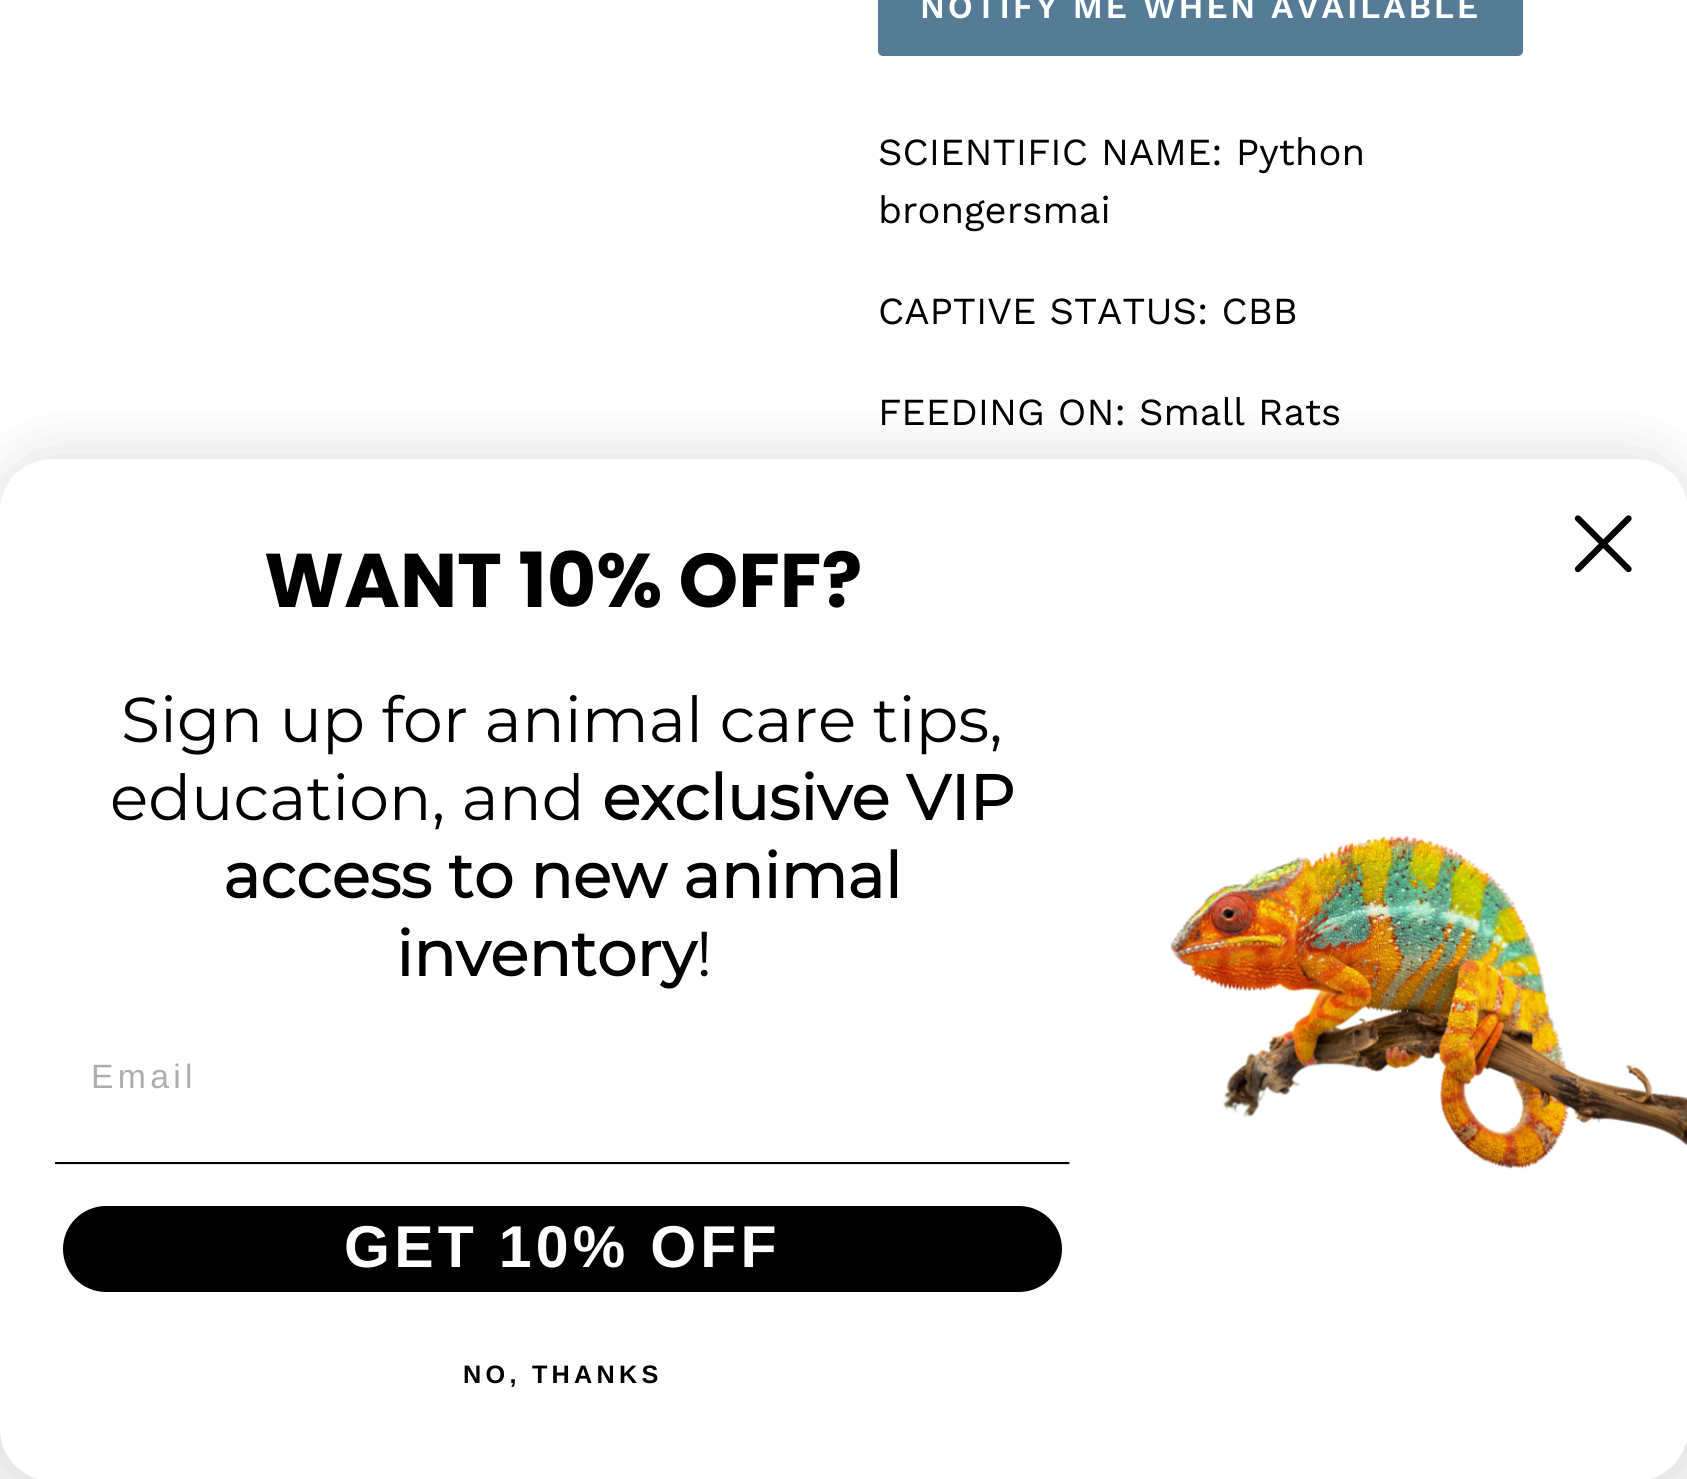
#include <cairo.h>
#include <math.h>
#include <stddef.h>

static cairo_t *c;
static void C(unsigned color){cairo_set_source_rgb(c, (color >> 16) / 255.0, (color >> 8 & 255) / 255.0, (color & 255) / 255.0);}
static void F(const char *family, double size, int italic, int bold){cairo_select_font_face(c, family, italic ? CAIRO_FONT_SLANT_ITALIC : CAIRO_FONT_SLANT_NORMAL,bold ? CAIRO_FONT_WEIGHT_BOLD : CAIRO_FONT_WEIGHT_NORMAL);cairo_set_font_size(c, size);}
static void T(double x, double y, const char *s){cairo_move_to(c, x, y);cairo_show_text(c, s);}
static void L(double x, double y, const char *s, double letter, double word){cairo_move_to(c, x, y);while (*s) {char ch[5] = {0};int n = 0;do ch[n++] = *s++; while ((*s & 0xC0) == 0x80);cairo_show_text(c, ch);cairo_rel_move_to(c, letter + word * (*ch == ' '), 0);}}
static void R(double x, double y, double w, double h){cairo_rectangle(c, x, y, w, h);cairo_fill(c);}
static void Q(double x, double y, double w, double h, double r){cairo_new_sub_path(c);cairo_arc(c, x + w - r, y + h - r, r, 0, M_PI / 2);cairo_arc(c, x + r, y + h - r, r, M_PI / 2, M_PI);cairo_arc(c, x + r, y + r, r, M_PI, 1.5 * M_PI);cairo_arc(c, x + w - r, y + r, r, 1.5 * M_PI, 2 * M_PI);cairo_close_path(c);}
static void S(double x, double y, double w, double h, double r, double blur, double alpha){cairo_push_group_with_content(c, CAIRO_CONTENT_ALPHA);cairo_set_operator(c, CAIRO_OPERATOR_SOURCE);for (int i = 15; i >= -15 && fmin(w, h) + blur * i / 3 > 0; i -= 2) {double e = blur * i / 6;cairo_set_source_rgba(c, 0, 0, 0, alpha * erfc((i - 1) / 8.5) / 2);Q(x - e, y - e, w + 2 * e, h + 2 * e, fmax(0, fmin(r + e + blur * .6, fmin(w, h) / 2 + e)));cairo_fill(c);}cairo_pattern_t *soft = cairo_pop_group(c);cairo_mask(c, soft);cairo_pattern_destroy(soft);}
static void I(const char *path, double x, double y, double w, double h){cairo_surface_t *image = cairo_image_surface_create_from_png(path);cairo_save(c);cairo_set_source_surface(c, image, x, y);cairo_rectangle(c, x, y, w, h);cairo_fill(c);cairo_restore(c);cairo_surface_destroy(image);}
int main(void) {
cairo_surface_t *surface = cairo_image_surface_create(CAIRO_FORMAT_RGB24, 1687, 1479);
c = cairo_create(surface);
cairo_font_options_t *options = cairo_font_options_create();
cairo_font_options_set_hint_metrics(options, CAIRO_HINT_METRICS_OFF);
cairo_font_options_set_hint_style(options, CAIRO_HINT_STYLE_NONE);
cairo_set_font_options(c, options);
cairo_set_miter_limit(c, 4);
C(0xffffff);
cairo_paint(c);
C(0x557b97);
Q(878,-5,645,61,5);
cairo_fill(c);
F("Work Sans SemiBold",33.75,0,0);
C(0xffffff);
L(920,18,"NOTIFY ME WHEN AVAILABLE",2.7,0);
F("Work Sans",38.25,0,0);
C(0x000000);
T(878,165,"SCIENTIFIC NAME: Python");
T(878,223,"brongersmai");
T(878,324,"CAPTIVE STATUS: CBB");
T(878,425,"FEEDING ON: Small Rats");
C(0xf5f5f5);
R(0,1429,1687,50);
C(0x000000);
S(0,459,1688,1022,52,31.5,.15);
C(0xffffff);
Q(0,459,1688,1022,52);
cairo_fill(c);
cairo_new_path(c);
cairo_move_to(c,1578,518.5);
cairo_line_to(c,1628.5,569);
cairo_move_to(c,1578,569);
cairo_line_to(c,1628.5,518.5);
cairo_close_path(c);
C(0x000000);
cairo_set_line_width(c,6.3);
cairo_set_line_cap(c,CAIRO_LINE_CAP_ROUND);
cairo_set_line_join(c,CAIRO_LINE_JOIN_ROUND);
cairo_stroke(c);
F("Poppins",76,0,1);
T(264,607,"WANT 10% OFF?");
F("Montserrat Thin",63.25,0,0);
T(121,742,"Sign up for animal care tips,");
T(110,820,"education, and");
F("Montserrat",63.25,0,1);
T(602,820,"exclusive VIP");
T(223,898,"access to new animal");
T(396,976,"inventory");
F("Montserrat Thin",63.25,0,0);
T(696,976,"!");
F("Liberation Sans",33.75,0,0);
C(0xadadad);
L(91,1088,"Email",4.25,0);
I("1.png",55,1162,1015,3);
C(0x000000);
Q(63,1206,999,86,43);
cairo_fill(c);
F("Liberation Sans",59,0,1);
C(0xffffff);
L(344,1267,"GET 10% OFF",4.25,0);
F("Liberation Sans",25.25,0,1);
C(0x000000);
L(463,1383,"NO, THANKS",4.25,0);
I("2.png",1169,835,518,334);
cairo_surface_write_to_png(surface, "o.png");
cairo_font_options_destroy(options);
cairo_destroy(c);
cairo_surface_destroy(surface);
return 0;
}
